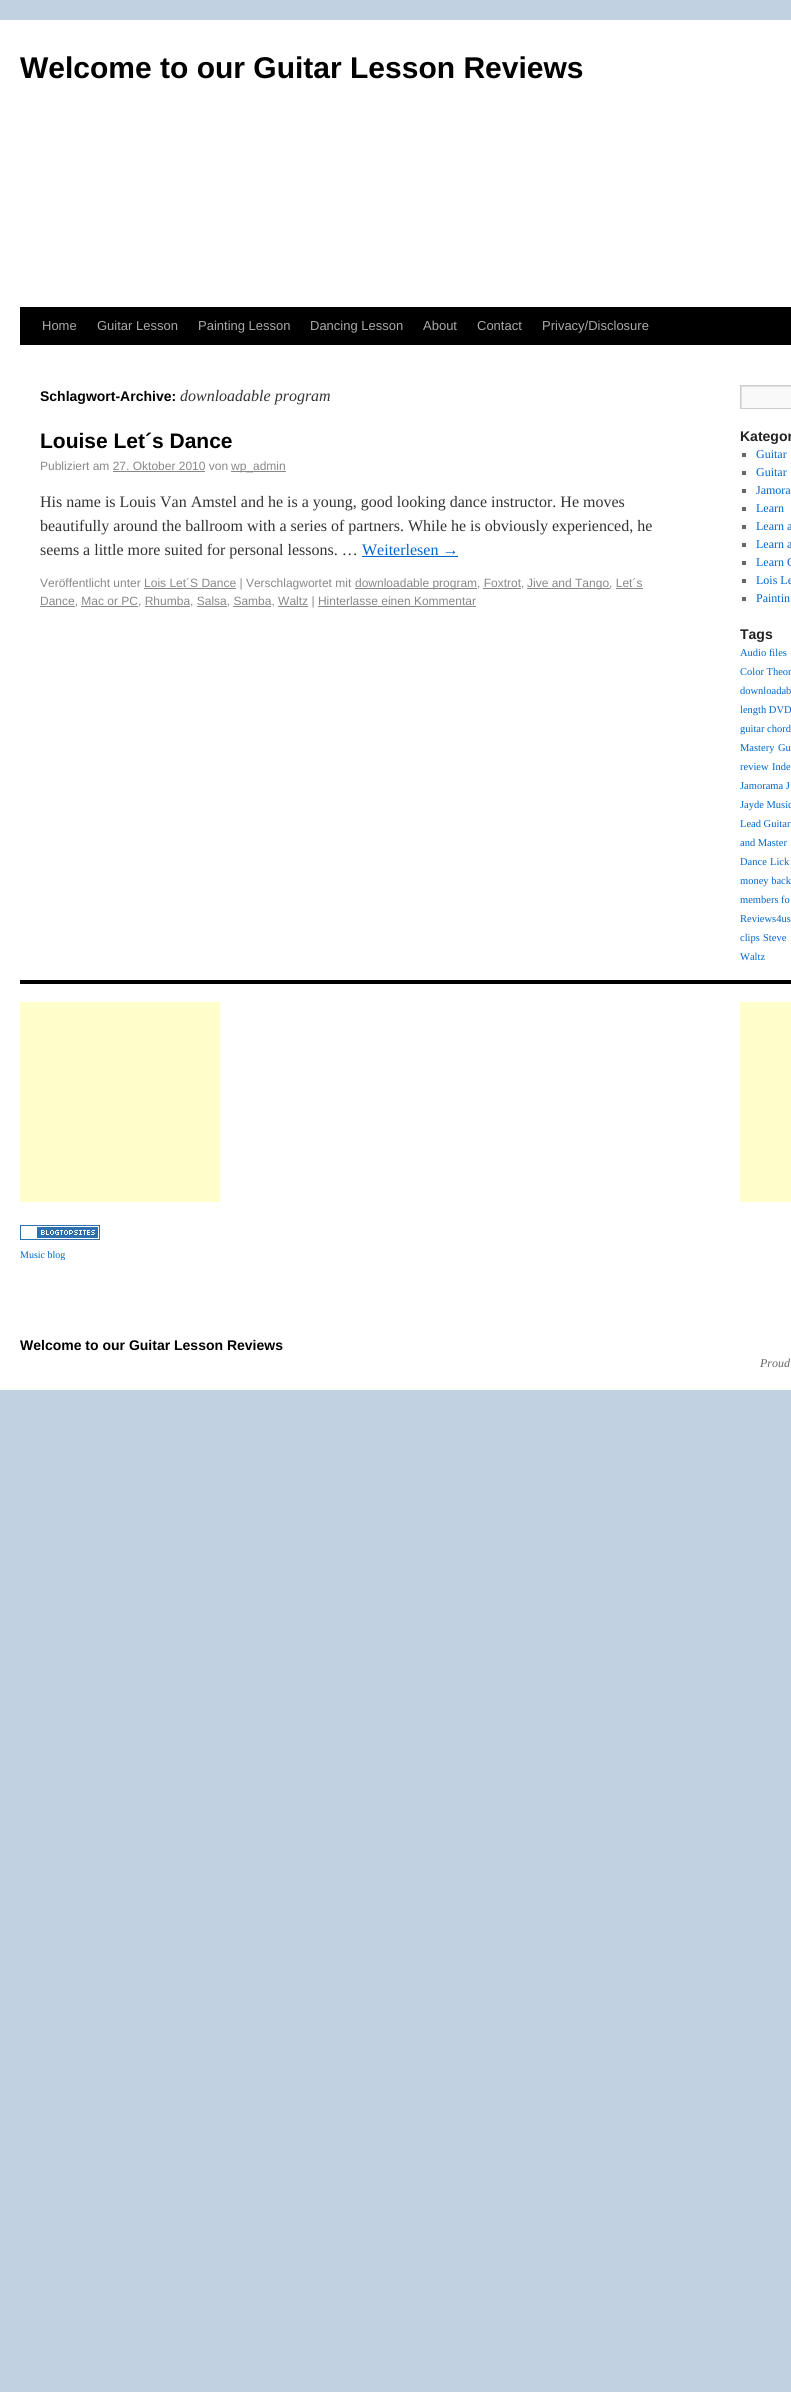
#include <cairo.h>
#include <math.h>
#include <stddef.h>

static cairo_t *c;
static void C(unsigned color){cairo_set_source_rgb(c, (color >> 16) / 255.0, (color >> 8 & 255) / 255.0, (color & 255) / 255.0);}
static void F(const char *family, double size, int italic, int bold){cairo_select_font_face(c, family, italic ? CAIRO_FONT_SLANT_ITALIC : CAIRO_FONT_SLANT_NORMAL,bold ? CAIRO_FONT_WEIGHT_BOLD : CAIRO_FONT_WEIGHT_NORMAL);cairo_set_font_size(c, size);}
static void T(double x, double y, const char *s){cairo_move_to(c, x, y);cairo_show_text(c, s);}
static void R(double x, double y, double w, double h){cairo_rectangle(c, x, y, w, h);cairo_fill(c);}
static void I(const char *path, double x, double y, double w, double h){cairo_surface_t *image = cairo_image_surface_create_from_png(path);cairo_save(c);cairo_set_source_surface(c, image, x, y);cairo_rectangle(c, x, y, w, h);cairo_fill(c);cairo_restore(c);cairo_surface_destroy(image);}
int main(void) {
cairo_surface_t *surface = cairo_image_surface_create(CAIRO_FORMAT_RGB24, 791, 2392);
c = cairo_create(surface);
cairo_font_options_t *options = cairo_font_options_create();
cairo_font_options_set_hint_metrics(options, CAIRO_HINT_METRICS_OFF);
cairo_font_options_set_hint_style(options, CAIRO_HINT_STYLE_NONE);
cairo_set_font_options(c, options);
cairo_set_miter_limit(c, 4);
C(0xc1d1e2);
cairo_paint(c);
C(0xffffff);
R(0,20,791,1370);
F("Liberation Sans",30,0,1);
C(0x000000);
T(20,78,"Welcome to our Guitar Lesson Reviews");
R(20,307,771,38);
F("Liberation Sans",13,0,0);
C(0xaaaaaa);
T(42,330,"Home");
T(97,330,"Guitar Lesson");
T(198,330,"Painting Lesson");
T(310,330,"Dancing Lesson");
T(423,330,"About");
T(477,330,"Contact");
T(542,330,"Privacy/Disclosure");
F("Liberation Sans",14,0,1);
C(0x000000);
T(40,401,"Schlagwort-Archive:");
F("Liberation Serif",16,1,0);
C(0x333333);
T(180,401,"downloadable program");
F("Liberation Sans",21,0,1);
C(0x000000);
T(40,448,"Louise Let´s Dance");
F("Liberation Sans",12,0,0);
C(0x888888);
T(40,470,"Publiziert am 27. Oktober 2010 von");
R(231,471,55,1);
T(231,470,"wp_admin");
R(113,471,92,1);
F("Liberation Serif",16,0,0);
C(0x333333);
T(40,507,"His name is Louis Van Amstel and he is a young, good looking dance instructor. He moves");
T(40,531,"beautifully around the ballroom with a series of partners. While he is obviously experienced, he");
T(40,555,"seems a little more suited for personal lessons. …");
C(0x0066cc);
T(362,555,"Weiterlesen →");
R(362,556,96,1);
F("Liberation Sans",12,0,0);
C(0x888888);
T(40,587,"Veröffentlicht unter Lois Let´S Dance | Verschlagwortet mit");
R(144,588,92,1);
R(355,588,122,1);
T(355,587,"downloadable program, Foxtrot,");
R(483,588,38,1);
R(527,588,83,1);
T(527,587,"Jive and Tango, Let´s");
R(616,588,27,1);
R(40,606,35,1);
T(40,605,"Dance, Mac or PC, Rhumba, Salsa, Samba, Waltz | Hinterlasse einen Kommentar");
R(81,606,57,1);
R(145,606,45,1);
R(197,606,30,1);
R(233,606,38,1);
R(278,606,30,1);
R(318,606,158,1);
C(0xf9f9f9);
R(742,387,49,21);
cairo_save(c);
cairo_rectangle(c,741,386,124,22);
cairo_clip(c);
C(0xe0e0e0);
cairo_set_fill_rule(c,CAIRO_FILL_RULE_EVEN_ODD);
cairo_new_path(c);
cairo_move_to(c,642,287);
cairo_line_to(c,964,287);
cairo_line_to(c,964,507);
cairo_line_to(c,642,507);
cairo_close_path(c);
cairo_move_to(c,742,387);
cairo_line_to(c,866,387);
cairo_line_to(c,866,409);
cairo_line_to(c,742,409);
cairo_close_path(c);
cairo_fill(c);
cairo_restore(c);
cairo_rectangle(c,740.5,385.5,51,23);
C(0xcccccc);
cairo_set_line_width(c,1);
cairo_stroke(c);
F("Liberation Sans",14,0,1);
C(0x222222);
T(740,441,"Kategor");
C(0x666666);
R(742,453,4,4);
F("Liberation Serif",12,0,0);
C(0x0066cc);
T(756,458,"Guitar");
C(0x666666);
R(742,471,4,4);
C(0x0066cc);
T(756,476,"Guitar");
C(0x666666);
R(742,489,4,4);
C(0x0066cc);
T(756,494,"Jamora");
C(0x666666);
R(742,507,4,4);
C(0x0066cc);
T(756,512,"Learn");
C(0x666666);
R(742,525,4,4);
C(0x0066cc);
T(756,530,"Learn a");
C(0x666666);
R(742,543,4,4);
C(0x0066cc);
T(756,548,"Learn a");
C(0x666666);
R(742,561,4,4);
C(0x0066cc);
T(756,566,"Learn G");
C(0x666666);
R(742,579,4,4);
C(0x0066cc);
T(756,584,"Lois Le");
C(0x666666);
R(742,597,4,4);
C(0x0066cc);
T(756,602,"Paintin");
F("Liberation Sans",14,0,1);
C(0x222222);
T(740,639,"Tags");
F("Liberation Serif",10.5,0,0);
C(0x0066cc);
T(740,656,"Audio files");
T(740,675,"Color Theor");
T(740,694,"downloadab");
T(740,713,"length DVD");
T(740,732,"guitar chord");
T(740,751,"Mastery");
T(778,751,"Gu");
T(740,770,"review");
T(772,770,"Inde");
T(740,789,"Jamorama J");
T(740,808,"Jayde Music");
T(740,827,"Lead Guitar");
T(740,846,"and Master");
T(740,865,"Dance");
T(770,865,"Lick");
T(740,884,"money back");
T(740,903,"members fo");
T(740,922,"Reviews4us");
T(740,941,"clips");
T(763,941,"Steve");
T(740,960,"Waltz");
C(0x000000);
R(20,980,771,4);
C(0xffffcc);
R(740,1002,51,200);
R(20,1002,200,200);
I("1.png",20,1225,80,15);
F("Liberation Serif",10,0,0);
C(0x0066cc);
T(20,1258,"Music blog");
F("Liberation Sans",14,0,1);
C(0x000000);
T(20,1350,"Welcome to our Guitar Lesson Reviews");
F("Liberation Serif",12,1,0);
C(0x666666);
T(760,1367,"Proud");
cairo_surface_write_to_png(surface, "o.png");
cairo_font_options_destroy(options);
cairo_destroy(c);
cairo_surface_destroy(surface);
return 0;
}
